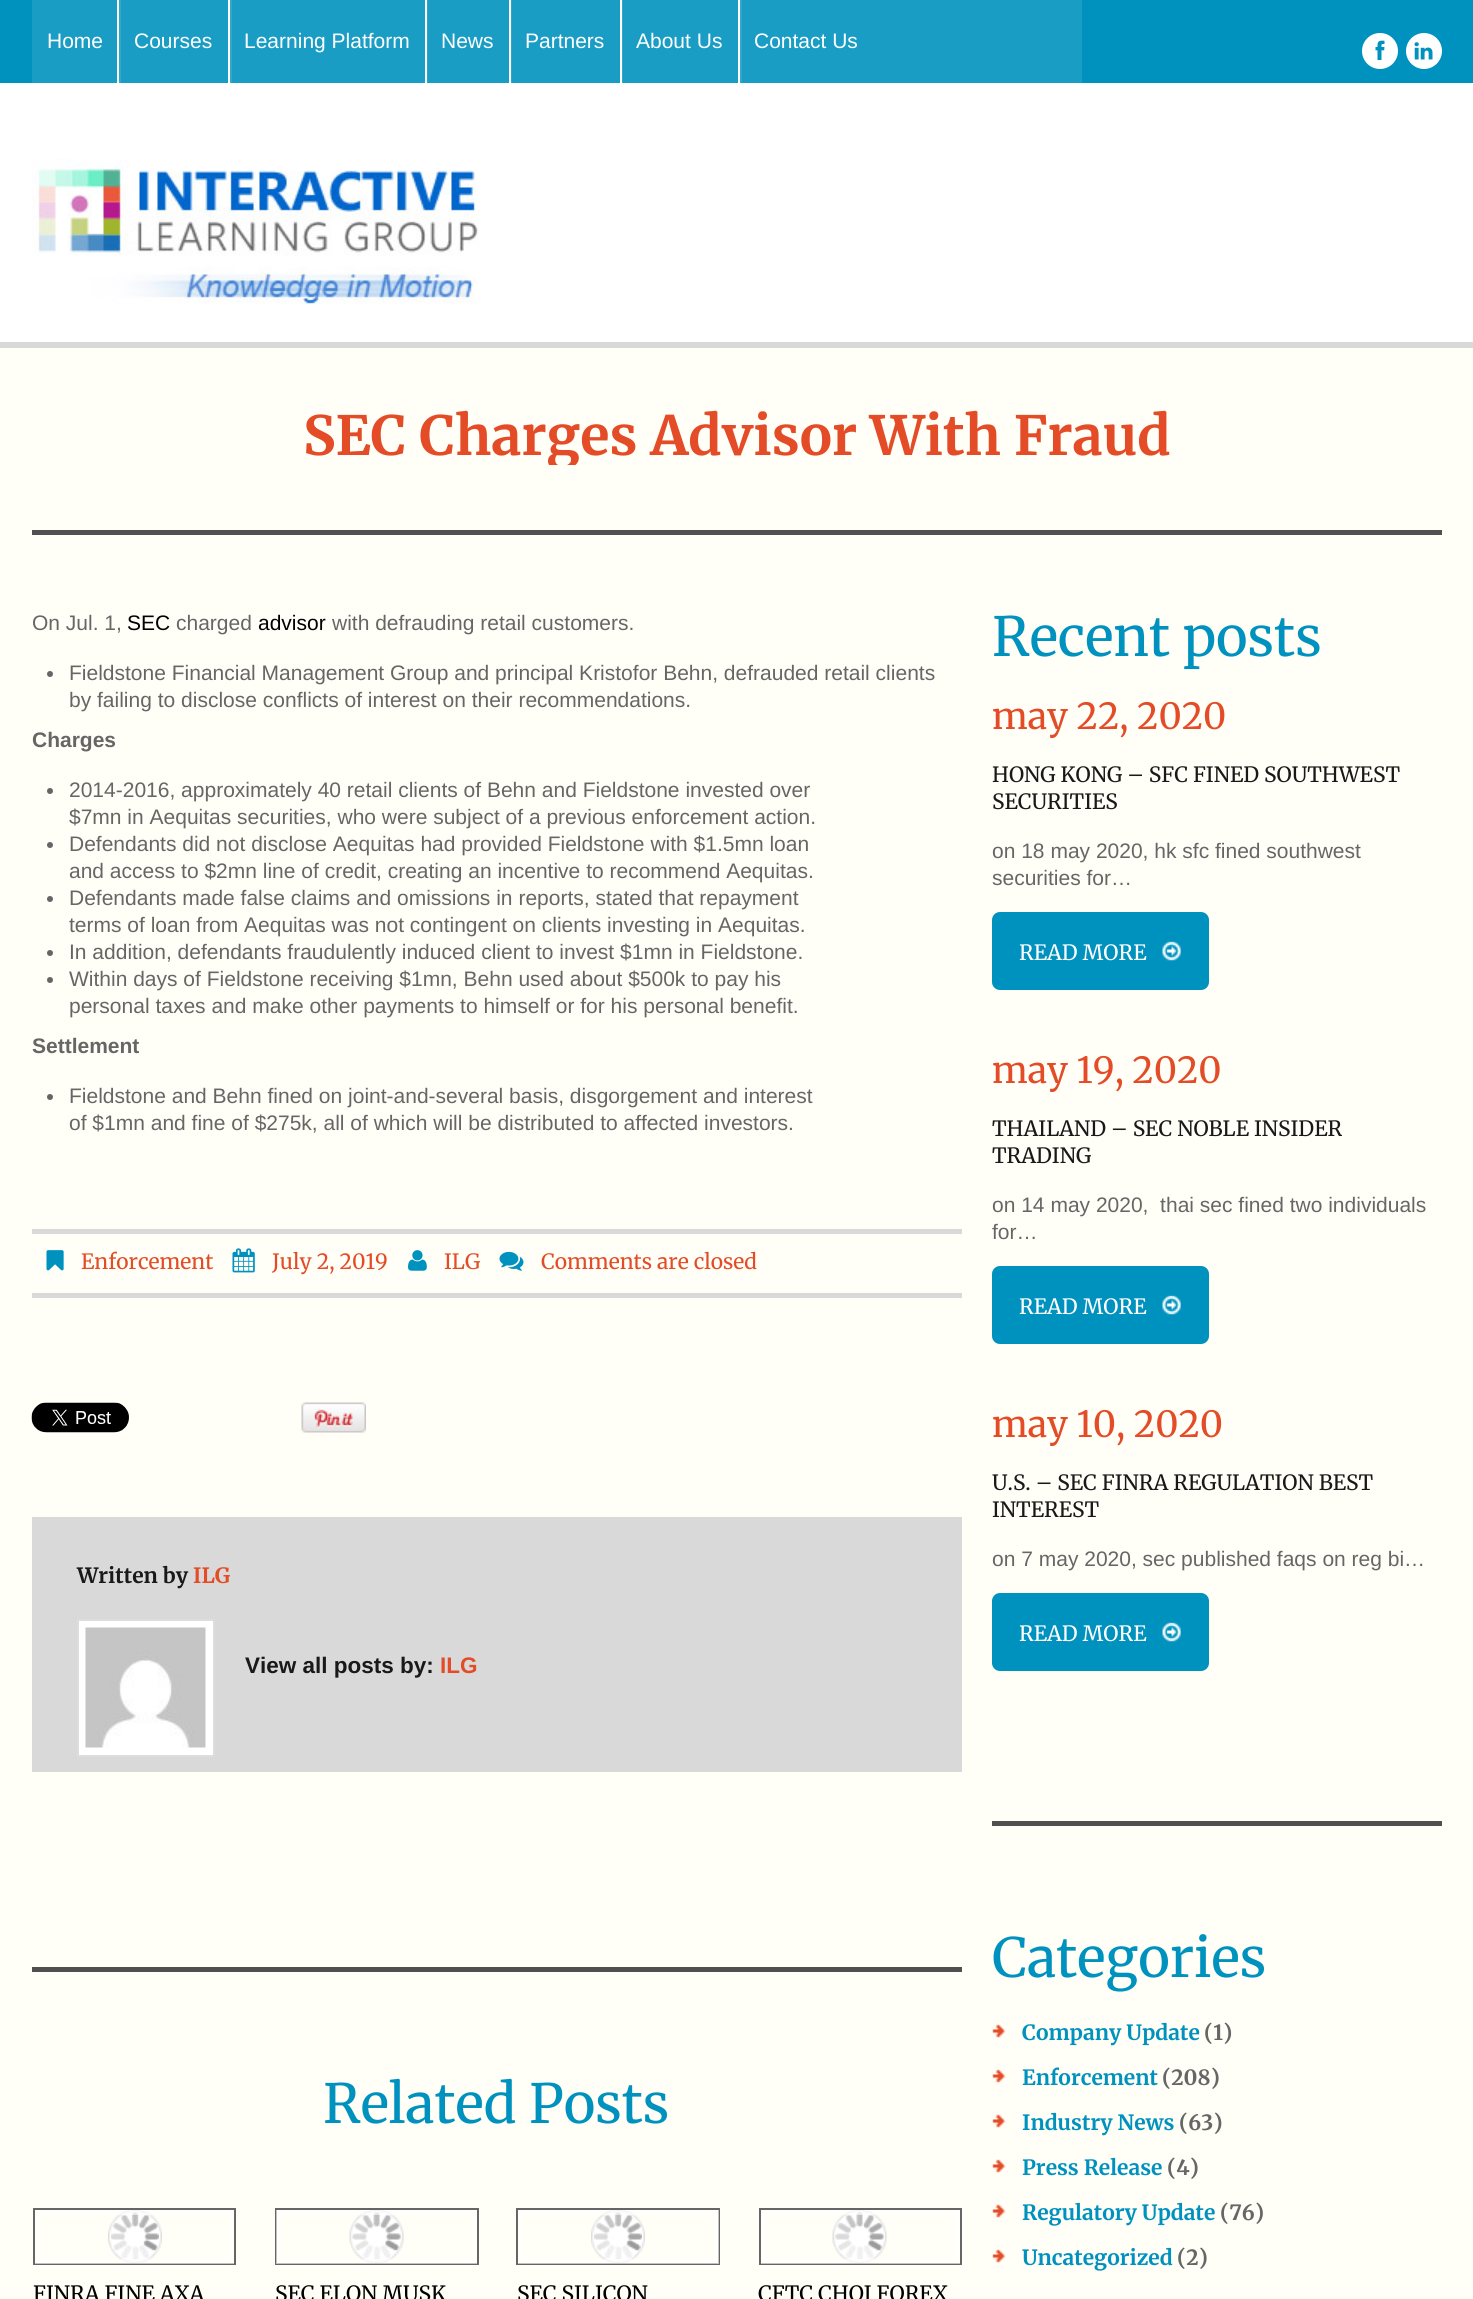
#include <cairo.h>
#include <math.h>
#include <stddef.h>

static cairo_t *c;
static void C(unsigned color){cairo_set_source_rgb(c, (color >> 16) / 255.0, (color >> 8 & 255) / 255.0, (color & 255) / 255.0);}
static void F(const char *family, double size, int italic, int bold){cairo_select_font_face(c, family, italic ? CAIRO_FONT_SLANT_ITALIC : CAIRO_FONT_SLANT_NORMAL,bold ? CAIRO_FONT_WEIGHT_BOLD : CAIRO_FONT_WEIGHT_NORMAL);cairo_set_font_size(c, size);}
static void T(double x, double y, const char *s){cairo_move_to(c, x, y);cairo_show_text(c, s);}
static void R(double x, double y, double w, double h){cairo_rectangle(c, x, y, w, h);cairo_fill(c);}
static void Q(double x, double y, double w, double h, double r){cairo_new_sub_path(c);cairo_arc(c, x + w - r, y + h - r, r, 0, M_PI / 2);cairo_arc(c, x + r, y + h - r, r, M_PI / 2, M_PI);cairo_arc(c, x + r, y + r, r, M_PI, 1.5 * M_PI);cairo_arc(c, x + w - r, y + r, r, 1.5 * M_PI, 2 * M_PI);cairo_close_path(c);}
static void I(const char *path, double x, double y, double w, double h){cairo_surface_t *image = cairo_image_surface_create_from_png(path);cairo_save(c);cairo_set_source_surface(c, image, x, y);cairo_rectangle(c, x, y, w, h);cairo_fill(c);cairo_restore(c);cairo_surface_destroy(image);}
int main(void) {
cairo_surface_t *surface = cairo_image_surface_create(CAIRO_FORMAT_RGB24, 1473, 2299);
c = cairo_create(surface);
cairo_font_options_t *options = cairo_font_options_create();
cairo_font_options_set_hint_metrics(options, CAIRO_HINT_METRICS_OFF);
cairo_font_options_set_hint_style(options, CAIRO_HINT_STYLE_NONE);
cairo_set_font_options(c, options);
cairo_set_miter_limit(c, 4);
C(0xfffef7);
cairo_paint(c);
C(0xffffff);
R(0,83,1473,259);
C(0xd9d9d9);
R(0,342,1473,6);
C(0x0092bf);
R(0,0,1473,83);
C(0x1a9dc5);
R(32,0,1050,83);
F("Liberation Sans",21,0,0);
C(0xffffff);
T(47,48,"Home");
C(0x31a7cb);
R(119,0,2,83);
C(0xffffff);
R(117,0,2,83);
T(134,48,"Courses");
C(0x31a7cb);
R(230,0,2,83);
C(0xffffff);
R(228,0,2,83);
T(244,48,"Learning Platform");
C(0x31a7cb);
R(427,0,1,83);
C(0xffffff);
R(425,0,2,83);
T(441,48,"News");
C(0x31a7cb);
R(511,0,1,83);
C(0xffffff);
R(509,0,2,83);
T(525,48,"Partners");
C(0x31a7cb);
R(622,0,1,83);
C(0xffffff);
R(620,0,2,83);
T(636,48,"About Us");
C(0x31a7cb);
R(740,0,2,83);
C(0xffffff);
R(738,0,2,83);
T(754,48,"Contact Us");
cairo_new_path(c);
cairo_arc(c,1380,51,18,0,2 * M_PI);
cairo_fill(c);
I("1.png",1375,40,10,20);
cairo_arc(c,1424,51,18,0,2 * M_PI);
cairo_fill(c);
I("2.png",1414,42,19,18);
I("3.png",31,159,447,145);
C(0x505050);
R(32,530,1410,5);
cairo_save(c);
cairo_rectangle(c,32,408,1410,57);
cairo_clip(c);
F("Merriweather Light",54,0,0);
C(0xe34c26);
T(303,455,"SEC Charges Advisor With Fraud");
cairo_restore(c);
C(0x666666);
T(32,630,"On Jul. 1,");
C(0x000000);
T(127,630,"SEC");
C(0x666666);
T(176,630,"charged");
C(0x000000);
T(258,630,"advisor");
C(0x666666);
T(332,630,"with defrauding retail customers.");
cairo_new_path(c);
cairo_arc(c,50,674,3,0,2 * M_PI);
cairo_fill(c);
T(69,680,"Fieldstone Financial Management Group and principal Kristofor Behn, defrauded retail clients");
T(69,707,"by failing to disclose conflicts of interest on their recommendations.");
F("Liberation Sans",21,0,1);
T(32,747,"Charges");
cairo_new_path(c);
cairo_arc(c,50,791,3,0,2 * M_PI);
cairo_fill(c);
F("Liberation Sans",21,0,0);
T(69,797,"2014-2016, approximately 40 retail clients of Behn and Fieldstone invested over");
T(69,824,"$7mn in Aequitas securities, who were subject of a previous enforcement action.");
cairo_new_path(c);
cairo_arc(c,50,845,3,0,2 * M_PI);
cairo_fill(c);
T(69,851,"Defendants did not disclose Aequitas had provided Fieldstone with $1.5mn loan");
T(69,878,"and access to $2mn line of credit, creating an incentive to recommend Aequitas.");
cairo_new_path(c);
cairo_arc(c,50,899,3,0,2 * M_PI);
cairo_fill(c);
T(69,905,"Defendants made false claims and omissions in reports, stated that repayment");
T(69,932,"terms of loan from Aequitas was not contingent on clients investing in Aequitas.");
cairo_new_path(c);
cairo_arc(c,50,953,3,0,2 * M_PI);
cairo_fill(c);
T(69,959,"In addition, defendants fraudulently induced client to invest $1mn in Fieldstone.");
cairo_new_path(c);
cairo_arc(c,50,980,3,0,2 * M_PI);
cairo_fill(c);
T(69,986,"Within days of Fieldstone receiving $1mn, Behn used about $500k to pay his");
T(69,1013,"personal taxes and make other payments to himself or for his personal benefit.");
F("Liberation Sans",21,0,1);
T(32,1053,"Settlement");
cairo_new_path(c);
cairo_arc(c,50,1097,3,0,2 * M_PI);
cairo_fill(c);
F("Liberation Sans",21,0,0);
T(69,1103,"Fieldstone and Behn fined on joint-and-several basis, disgorgement and interest");
T(69,1130,"of $1mn and fine of $275k, all of which will be distributed to affected investors.");
C(0xd9d9d9);
R(32,1229,930,5);
R(32,1293,930,5);
I("4.png",46,1250,18,21);
F("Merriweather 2 Light",21,0,0);
C(0xe34c26);
T(81,1269,"Enforcement");
I("5.png",232,1248,23,25);
T(272,1269,"July 2, 2019");
I("6.png",408,1250,19,21);
T(444,1269,"ILG");
I("7.png",499,1251,25,20);
T(541,1269,"Comments are closed");
I("8.png",31,1402,98,31);
I("9.png",301,1402,65,31);
C(0xd9d9d9);
R(32,1517,930,255);
F("Merriweather Light",21,0,0);
C(0x191919);
T(77,1583,"Written by");
C(0xe34c26);
T(193,1583,"ILG");
C(0xffffff);
cairo_rectangle(c,78,1620,136,136);
cairo_fill_preserve(c);
C(0xdddddd);
cairo_stroke(c);
I("10.png",85,1627,121,121);
F("Liberation Sans",22.5,0,1);
C(0x191919);
T(245,1673,"View all posts by:");
C(0xe34c26);
T(440,1673,"ILG");
C(0x505050);
R(32,1967,930,5);
F("Merriweather 2 Light",54,0,0);
C(0x0092bf);
T(323,2123,"Related Posts");
I("11.png",108,2210,54,53);
cairo_rectangle(c,34,2209,201,55);
C(0x666666);
cairo_stroke(c);
cairo_rectangle(c,37.5,2212.5,194,49);
cairo_set_source_rgba(c,1,1,1,0.6);
cairo_set_line_width(c,5);
cairo_stroke(c);
F("Merriweather 2 Light",21,0,0);
C(0x000000);
T(33,2301,"FINRA FINE AXA");
I("12.png",349,2210,55,53);
cairo_rectangle(c,276,2209,202,55);
C(0x666666);
cairo_set_line_width(c,2);
cairo_stroke(c);
cairo_rectangle(c,278.5,2212.5,196,49);
cairo_set_source_rgba(c,1,1,1,0.6);
cairo_set_line_width(c,5);
cairo_stroke(c);
C(0x000000);
T(275,2301,"SEC ELON MUSK");
I("13.png",591,2210,54,53);
cairo_rectangle(c,517,2209,202,55);
C(0x666666);
cairo_set_line_width(c,2);
cairo_stroke(c);
cairo_rectangle(c,520.5,2212.5,196,49);
cairo_set_source_rgba(c,1,1,1,0.6);
cairo_set_line_width(c,5);
cairo_stroke(c);
C(0x000000);
T(517,2301,"SEC SILICON");
I("14.png",832,2210,55,53);
cairo_rectangle(c,760,2209,201,55);
C(0x666666);
cairo_set_line_width(c,2);
cairo_stroke(c);
cairo_rectangle(c,763.5,2212.5,194,49);
cairo_set_source_rgba(c,1,1,1,0.6);
cairo_set_line_width(c,5);
cairo_stroke(c);
C(0x000000);
T(758,2301,"CFTC CHOI FOREX");
F("Merriweather 2 Light",54,0,0);
C(0x0092bf);
T(992,656,"Recent posts");
F("Merriweather 2 Light",36,0,0);
C(0xe34c26);
T(992,729,"may 22, 2020");
F("Merriweather 2 Light",21,0,0);
C(0x191919);
T(992,782,"HONG KONG – SFC FINED SOUTHWEST");
T(992,809,"SECURITIES");
F("Liberation Sans",21,0,0);
C(0x666666);
T(992,858,"on 18 may 2020, hk sfc fined southwest");
T(992,885,"securities for…");
C(0x0092bf);
Q(992,912,217,78,8);
cairo_fill(c);
F("Merriweather 2 Light",21,0,0);
C(0xffffff);
T(1019,960,"READ MORE");
I("15.png",1162,941,19,20);
F("Merriweather 2 Light",36,0,0);
C(0xe34c26);
T(992,1083,"may 19, 2020");
F("Merriweather 2 Light",21,0,0);
C(0x191919);
T(992,1136,"THAILAND – SEC NOBLE INSIDER");
T(992,1163,"TRADING");
F("Liberation Sans",21,0,0);
C(0x666666);
T(992,1212,"on 14 may 2020,  thai sec fined two individuals");
T(992,1239,"for…");
C(0x0092bf);
Q(992,1266,217,78,8);
cairo_fill(c);
F("Merriweather 2 Light",21,0,0);
C(0xffffff);
T(1019,1314,"READ MORE");
I("15.png",1162,1295,19,20);
F("Merriweather 2 Light",36,0,0);
C(0xe34c26);
T(992,1437,"may 10, 2020");
F("Merriweather 2 Light",21,0,0);
C(0x191919);
T(992,1490,"U.S. – SEC FINRA REGULATION BEST");
T(992,1517,"INTEREST");
F("Liberation Sans",21,0,0);
C(0x666666);
T(992,1566,"on 7 may 2020, sec published faqs on reg bi…");
C(0x0092bf);
Q(992,1593,217,78,8);
cairo_fill(c);
F("Merriweather 2 Light",21,0,0);
C(0xffffff);
T(1019,1641,"READ MORE");
I("15.png",1162,1622,19,20);
C(0x505050);
R(992,1821,450,5);
F("Merriweather 2 Light",54,0,0);
C(0x0092bf);
T(992,1977,"Categories");
I("16.png",992,2024,14,14);
F("Merriweather Light",21,0,0);
T(1022,2040,"Company Update");
C(0x666666);
T(1204,2040,"(1)");
I("16.png",992,2069,14,14);
C(0x0092bf);
T(1022,2085,"Enforcement");
C(0x666666);
T(1162,2085,"(208)");
I("16.png",992,2114,14,14);
C(0x0092bf);
T(1022,2130,"Industry News");
C(0x666666);
T(1179,2130,"(63)");
I("16.png",992,2159,14,14);
C(0x0092bf);
T(1022,2175,"Press Release");
C(0x666666);
T(1167,2175,"(4)");
I("16.png",992,2204,14,14);
C(0x0092bf);
T(1022,2220,"Regulatory Update");
C(0x666666);
T(1220,2220,"(76)");
I("16.png",992,2249,14,14);
C(0x0092bf);
T(1022,2265,"Uncategorized");
C(0x666666);
T(1177,2265,"(2)");
cairo_surface_write_to_png(surface, "o.png");
cairo_font_options_destroy(options);
cairo_destroy(c);
cairo_surface_destroy(surface);
return 0;
}
